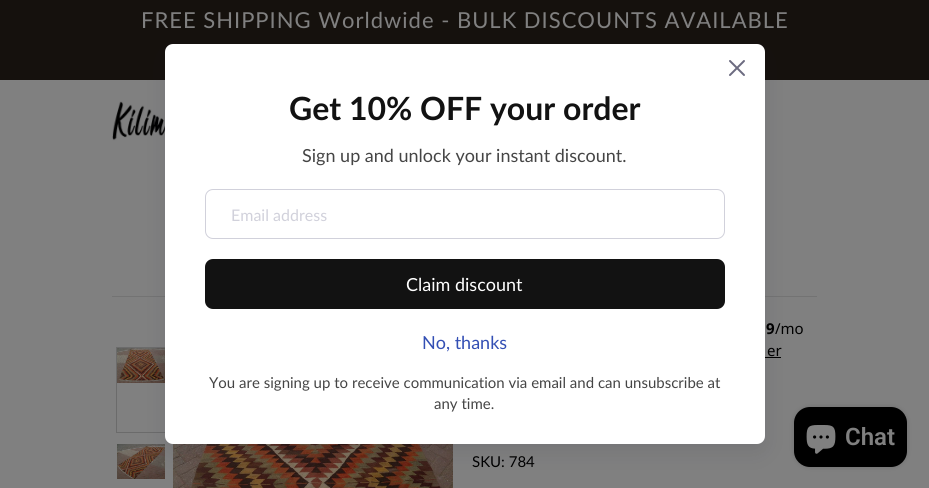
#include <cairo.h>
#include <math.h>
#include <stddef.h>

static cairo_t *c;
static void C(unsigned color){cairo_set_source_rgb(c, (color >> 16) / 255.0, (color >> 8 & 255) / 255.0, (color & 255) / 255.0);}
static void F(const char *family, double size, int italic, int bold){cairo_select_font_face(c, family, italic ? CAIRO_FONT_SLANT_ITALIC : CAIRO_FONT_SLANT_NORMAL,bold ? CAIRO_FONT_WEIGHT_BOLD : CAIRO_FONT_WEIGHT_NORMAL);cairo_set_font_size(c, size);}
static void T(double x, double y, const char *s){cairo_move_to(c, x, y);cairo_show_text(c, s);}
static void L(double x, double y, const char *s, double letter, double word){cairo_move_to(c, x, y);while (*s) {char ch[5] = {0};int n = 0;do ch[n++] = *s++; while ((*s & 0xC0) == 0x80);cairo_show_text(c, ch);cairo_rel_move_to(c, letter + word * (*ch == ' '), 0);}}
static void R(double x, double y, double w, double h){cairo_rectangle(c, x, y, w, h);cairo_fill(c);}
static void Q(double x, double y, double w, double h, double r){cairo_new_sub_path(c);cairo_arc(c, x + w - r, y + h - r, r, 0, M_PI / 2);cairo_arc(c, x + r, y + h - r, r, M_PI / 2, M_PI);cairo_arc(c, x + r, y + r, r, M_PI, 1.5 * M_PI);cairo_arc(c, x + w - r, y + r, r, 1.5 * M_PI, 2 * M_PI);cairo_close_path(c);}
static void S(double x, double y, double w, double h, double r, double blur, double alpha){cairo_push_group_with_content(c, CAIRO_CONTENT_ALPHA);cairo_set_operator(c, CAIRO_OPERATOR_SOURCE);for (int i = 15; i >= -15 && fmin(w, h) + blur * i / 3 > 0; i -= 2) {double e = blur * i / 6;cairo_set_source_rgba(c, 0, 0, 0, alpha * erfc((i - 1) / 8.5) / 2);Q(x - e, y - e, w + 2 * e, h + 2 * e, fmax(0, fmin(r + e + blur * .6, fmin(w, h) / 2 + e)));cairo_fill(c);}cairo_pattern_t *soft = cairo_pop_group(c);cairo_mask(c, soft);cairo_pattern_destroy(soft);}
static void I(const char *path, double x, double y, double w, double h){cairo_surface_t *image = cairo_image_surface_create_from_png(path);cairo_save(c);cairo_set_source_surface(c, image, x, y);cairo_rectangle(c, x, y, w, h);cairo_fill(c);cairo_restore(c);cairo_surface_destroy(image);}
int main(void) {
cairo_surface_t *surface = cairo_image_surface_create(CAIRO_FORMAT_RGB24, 929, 488);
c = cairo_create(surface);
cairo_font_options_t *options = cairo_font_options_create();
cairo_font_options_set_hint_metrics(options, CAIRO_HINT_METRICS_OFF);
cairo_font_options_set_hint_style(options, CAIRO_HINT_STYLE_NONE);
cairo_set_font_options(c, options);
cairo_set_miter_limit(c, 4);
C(0x808080);
cairo_paint(c);
C(0x15110d);
R(0,0,929,80);
F("Lato",22,0,0);
C(0x808080);
L(141,28,"FREE SHIPPING Worldwide - BULK DISCOUNTS AVAILABLE",1,0);
I("1.png",112,101,53,46);
C(0x737373);
R(112,296,705,1);
cairo_rectangle(c,116.5,347.5,49,85);
C(0x6b6b6b);
cairo_set_line_width(c,1);
cairo_stroke(c);
I("2.png",117,348,48,35);
I("3.png",117,444,48,35);
I("4.png",173,444,280,44);
F("Noto Sans",15,0,1);
C(0x000000);
T(766,334,"9");
F("Noto Sans",15,0,0);
T(775,334,"/mo");
T(767,356,"er");
R(765,357,16,1);
F("Lato",15,0,0);
T(472,467,"SKU: 784");
C(0x000000);
S(794,407,113,60,16,2.5,.15);
C(0x000000);
Q(794,407,113,60,16);
cairo_fill(c);
C(0x121127);
S(165,52,600,400,8,10,.1);
C(0xffffff);
Q(165,44,600,400,8);
cairo_fill(c);
I("5.png",729,60,16,16);
F("Lato",32,0,1);
C(0x121212);
T(289,120,"Get 10% OFF your order");
F("Lato",18,0,0);
C(0x454545);
T(302,162,"Sign up and unlock your instant discount.");
Q(205.5,189.5,519,49,7.5);
C(0xd1d1db);
cairo_stroke(c);
F("Lato",16,0,0);
T(231,221,"Email address");
C(0x121212);
Q(205,259,520,50,8);
cairo_fill(c);
F("Lato",18,0,0);
C(0xffffff);
T(406,291,"Claim discount");
C(0x334fb4);
T(422,349,"No, thanks");
F("Lato",15,0,0);
C(0x454545);
T(209,388,"You are signing up to receive communication via email and can unsubscribe at");
T(434,409,"any time.");
I("6.png",806,425,30,29);
F("Roboto SemiBold",24,0,0);
C(0x808080);
T(845,445,"Chat");
cairo_surface_write_to_png(surface, "o.png");
cairo_font_options_destroy(options);
cairo_destroy(c);
cairo_surface_destroy(surface);
return 0;
}
